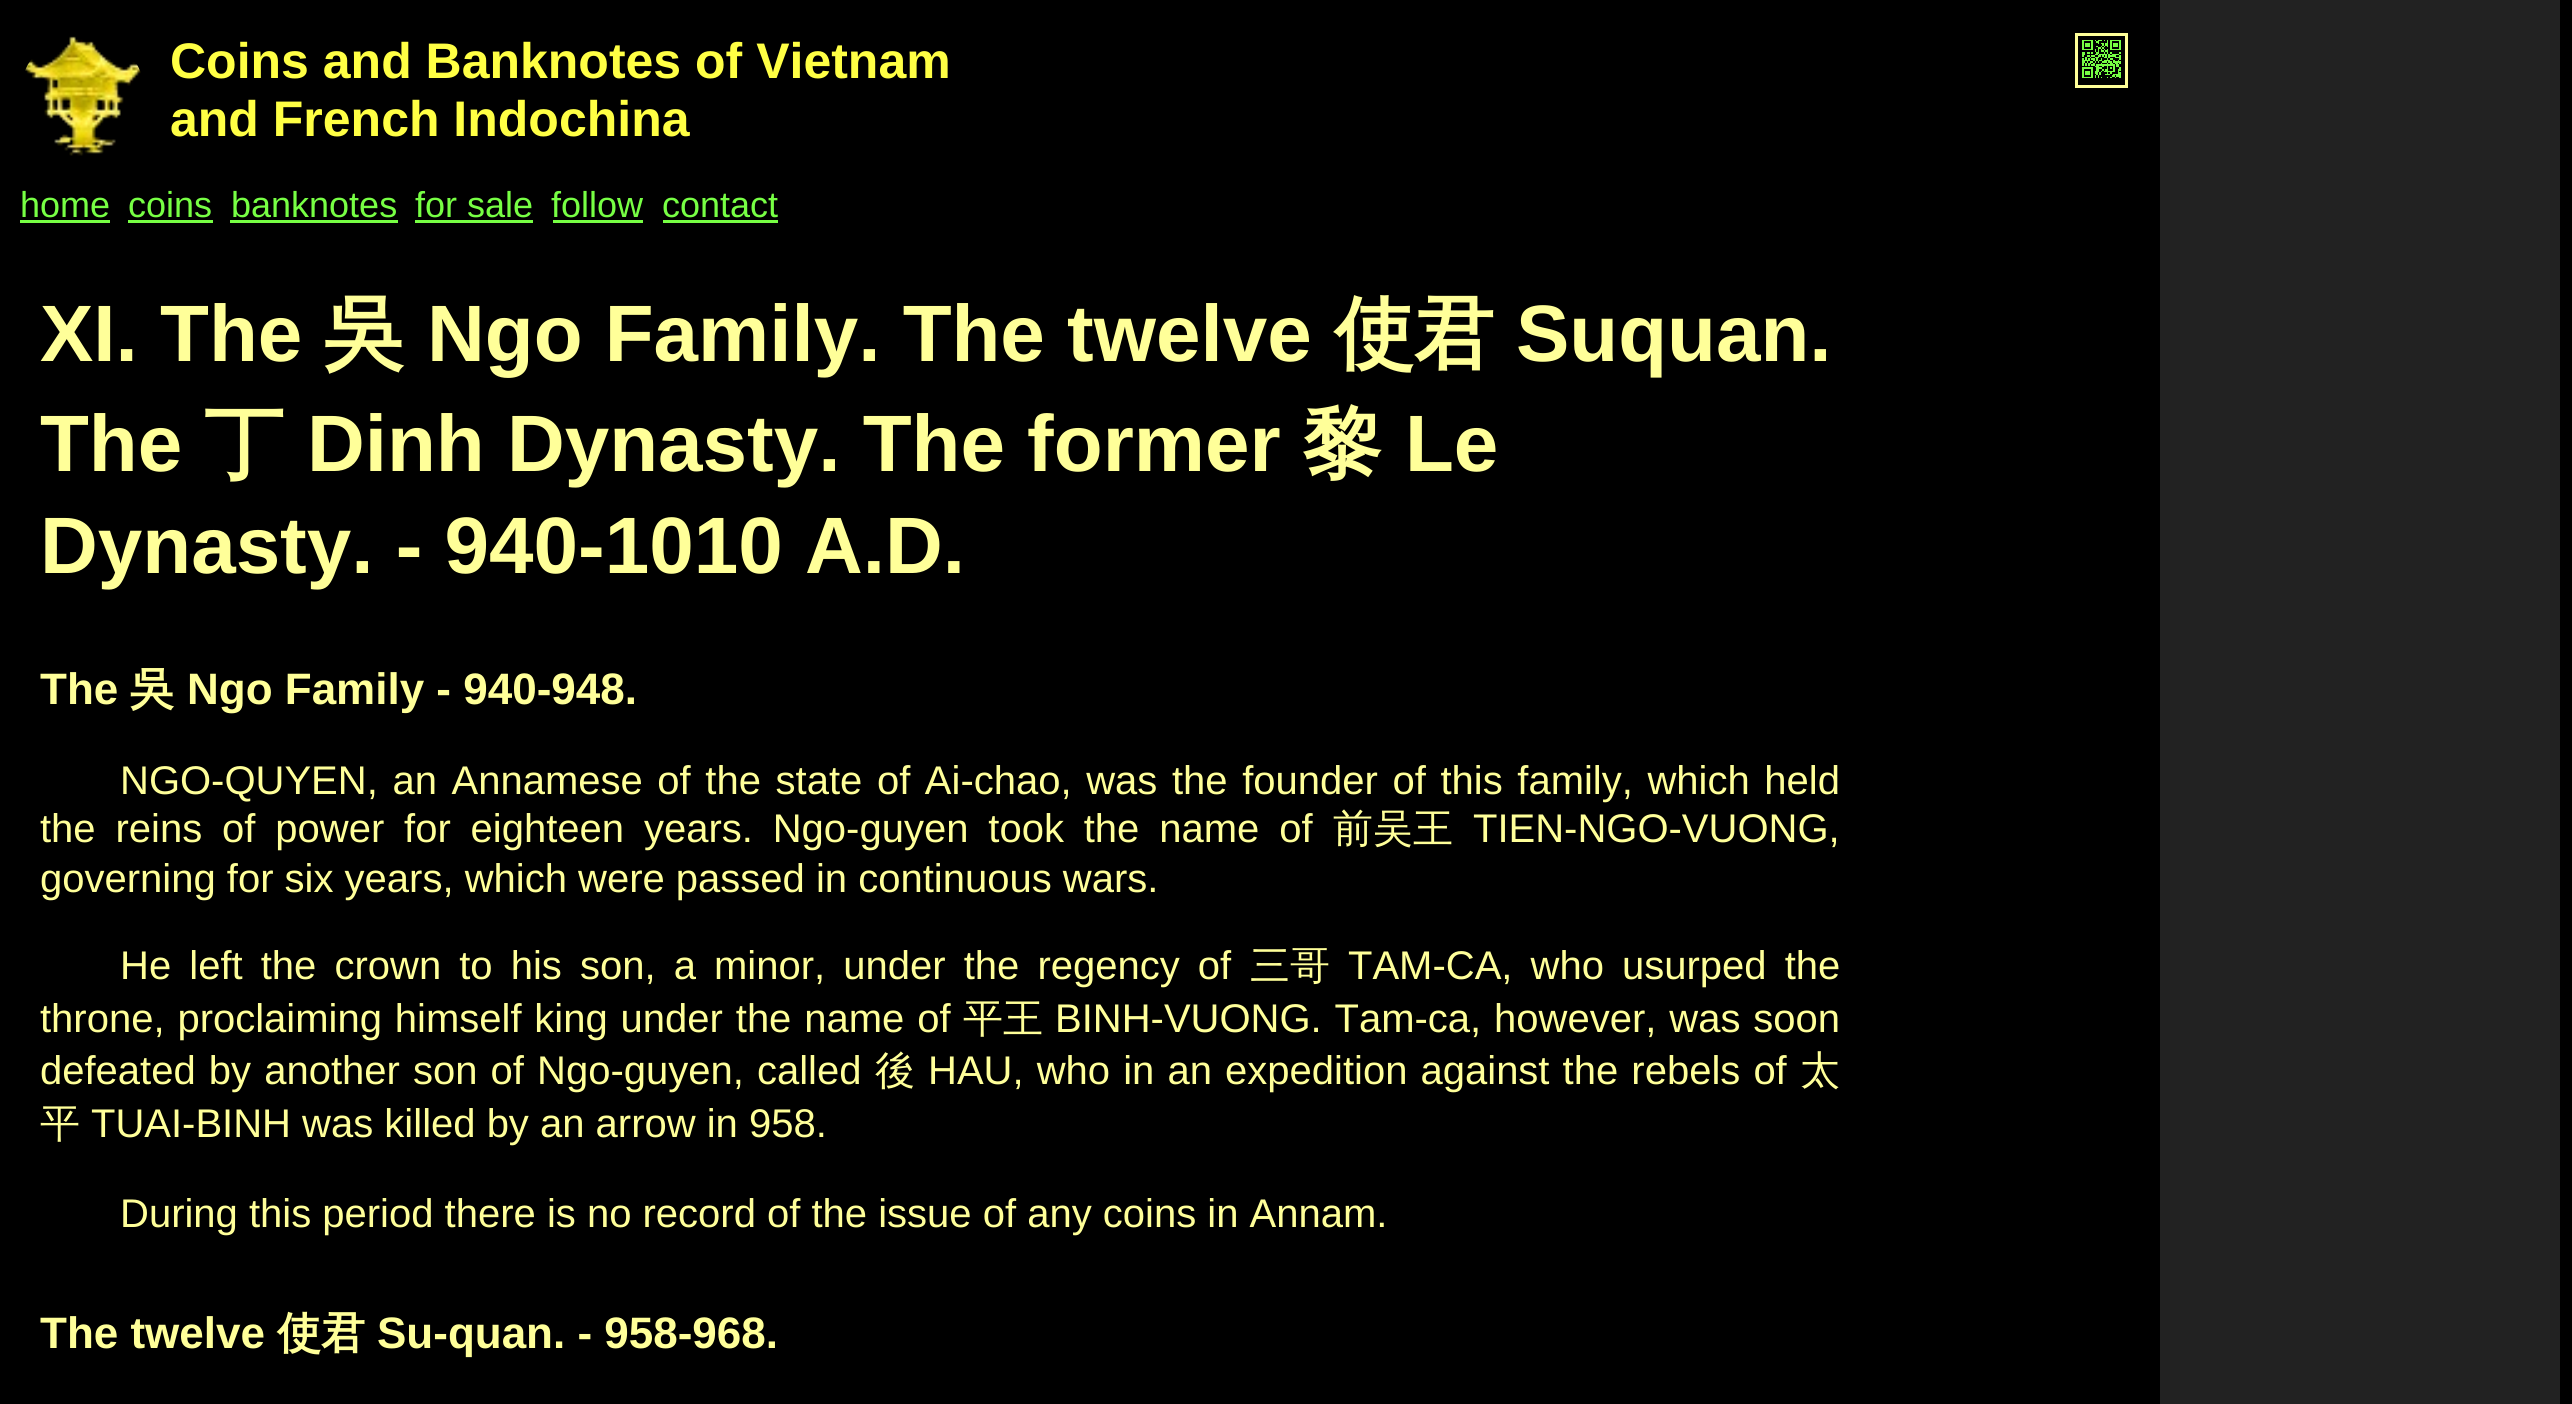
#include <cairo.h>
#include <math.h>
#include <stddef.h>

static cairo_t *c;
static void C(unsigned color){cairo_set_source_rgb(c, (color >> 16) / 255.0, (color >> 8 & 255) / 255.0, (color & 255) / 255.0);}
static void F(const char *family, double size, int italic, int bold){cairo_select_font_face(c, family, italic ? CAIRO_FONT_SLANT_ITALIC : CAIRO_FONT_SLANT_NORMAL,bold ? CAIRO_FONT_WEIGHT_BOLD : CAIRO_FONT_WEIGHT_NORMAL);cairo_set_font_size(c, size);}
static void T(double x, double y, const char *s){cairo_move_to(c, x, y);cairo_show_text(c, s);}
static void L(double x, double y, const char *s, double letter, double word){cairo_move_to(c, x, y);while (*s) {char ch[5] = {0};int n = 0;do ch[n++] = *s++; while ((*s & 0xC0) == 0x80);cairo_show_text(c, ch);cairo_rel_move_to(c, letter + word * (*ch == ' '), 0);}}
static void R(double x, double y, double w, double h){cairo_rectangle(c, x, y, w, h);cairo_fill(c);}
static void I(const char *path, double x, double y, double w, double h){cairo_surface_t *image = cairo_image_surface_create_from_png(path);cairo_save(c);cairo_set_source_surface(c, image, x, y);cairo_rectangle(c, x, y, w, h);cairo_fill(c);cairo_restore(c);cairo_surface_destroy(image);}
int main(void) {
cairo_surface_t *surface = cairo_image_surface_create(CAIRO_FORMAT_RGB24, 2572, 1404);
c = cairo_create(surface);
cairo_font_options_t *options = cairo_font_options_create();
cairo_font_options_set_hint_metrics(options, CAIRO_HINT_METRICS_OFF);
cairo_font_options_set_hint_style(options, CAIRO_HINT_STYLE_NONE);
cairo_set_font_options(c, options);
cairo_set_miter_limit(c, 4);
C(0x000000);
cairo_paint(c);
I("1.png",25,36,116,120);
F("Liberation Sans",50,0,1);
C(0xffff44);
T(170,78,"Coins and Banknotes of Vietnam");
T(170,136,"and French Indochina");
cairo_rectangle(c,2076.5,34.5,50,52);
C(0xffff99);
cairo_set_line_width(c,3);
cairo_stroke(c);
I("2.png",2082,40,39,38);
F("Liberation Sans",36,0,0);
C(0x77ff44);
T(20,217,"home");
R(20,220,90,3);
T(128,217,"coins");
R(128,220,85,3);
T(231,217,"banknotes");
R(230,220,168,3);
T(415,217,"for sale");
R(415,220,118,3);
T(551,217,"follow");
R(553,220,90,3);
T(662,217,"contact");
R(663,220,115,3);
F("Liberation Sans",80,0,1);
C(0xffff99);
T(40,361,"XI. The");
F("WenQuanYi Zen Hei",80,0,1);
T(324,361,"吳");
F("Liberation Sans",80,0,1);
T(427,361,"Ngo Family. The twelve");
F("WenQuanYi Zen Hei",80,0,1);
T(1334,361,"使君");
F("Liberation Sans",80,0,1);
T(1516,361,"Suquan.");
T(40,471,"The");
F("WenQuanYi Zen Hei",80,0,1);
T(204,471,"丁");
F("Liberation Sans",80,0,1);
T(307,471,"Dinh Dynasty. The former");
F("WenQuanYi Zen Hei",80,0,1);
T(1302,471,"黎");
F("Liberation Sans",80,0,1);
T(1405,471,"Le");
T(40,573,"Dynasty. - 940-1010 A.D.");
F("Liberation Sans",44,0,1);
T(40,704,"The");
F("WenQuanYi Zen Hei",44,0,1);
T(130,704,"吳");
F("Liberation Sans",44,0,1);
T(187,704,"Ngo Family - 940-948.");
F("Liberation Sans",40,0,0);
L(120,794,"NGO-QUYEN, an Annamese of the state of Ai-chao, was the founder of this family, which held",0,3.5);
L(40,842,"the reins of power for eighteen years. Ngo-guyen took the name of",0,8.75);
F("WenQuanYi Zen Hei Medium",40,0,0);
T(1333,842,"前吴王");
F("Liberation Sans",40,0,0);
T(1473,842,"TIEN-NGO-VUONG,");
T(40,892,"governing for six years, which were passed in continuous wars.");
L(120,979,"He left the crown to his son, a minor, under the regency of",0,7);
F("WenQuanYi Zen Hei Medium",40,0,0);
T(1250,979,"三哥");
F("Liberation Sans",40,0,0);
L(1348,979,"TAM-CA, who usurped the",0,7);
L(40,1032,"throne, proclaiming himself king under the name of",0,1.75);
F("WenQuanYi Zen Hei Medium",40,0,0);
T(963,1032,"平王");
F("Liberation Sans",40,0,0);
L(1055,1032,"BINH-VUONG. Tam-ca, however, was soon",0,1.75);
L(40,1084,"defeated by another son of Ngo-guyen, called",0,2);
F("WenQuanYi Zen Hei Medium",40,0,0);
T(875,1084,"後");
F("Liberation Sans",40,0,0);
L(928,1084,"HAU, who in an expedition against the rebels of",0,2);
F("WenQuanYi Zen Hei Medium",40,0,0);
T(1800,1084,"太");
T(40,1137,"平");
F("Liberation Sans",40,0,0);
T(91,1137,"TUAI-BINH was killed by an arrow in 958.");
T(120,1227,"During this period there is no record of the issue of any coins in Annam.");
F("Liberation Sans",44,0,1);
T(40,1348,"The twelve");
F("WenQuanYi Zen Hei",44,0,1);
T(277,1348,"使君");
F("Liberation Sans",44,0,1);
T(377,1348,"Su-quan. - 958-968.");
C(0x222222);
R(2160,0,400,1404);
cairo_surface_write_to_png(surface, "o.png");
cairo_font_options_destroy(options);
cairo_destroy(c);
cairo_surface_destroy(surface);
return 0;
}
